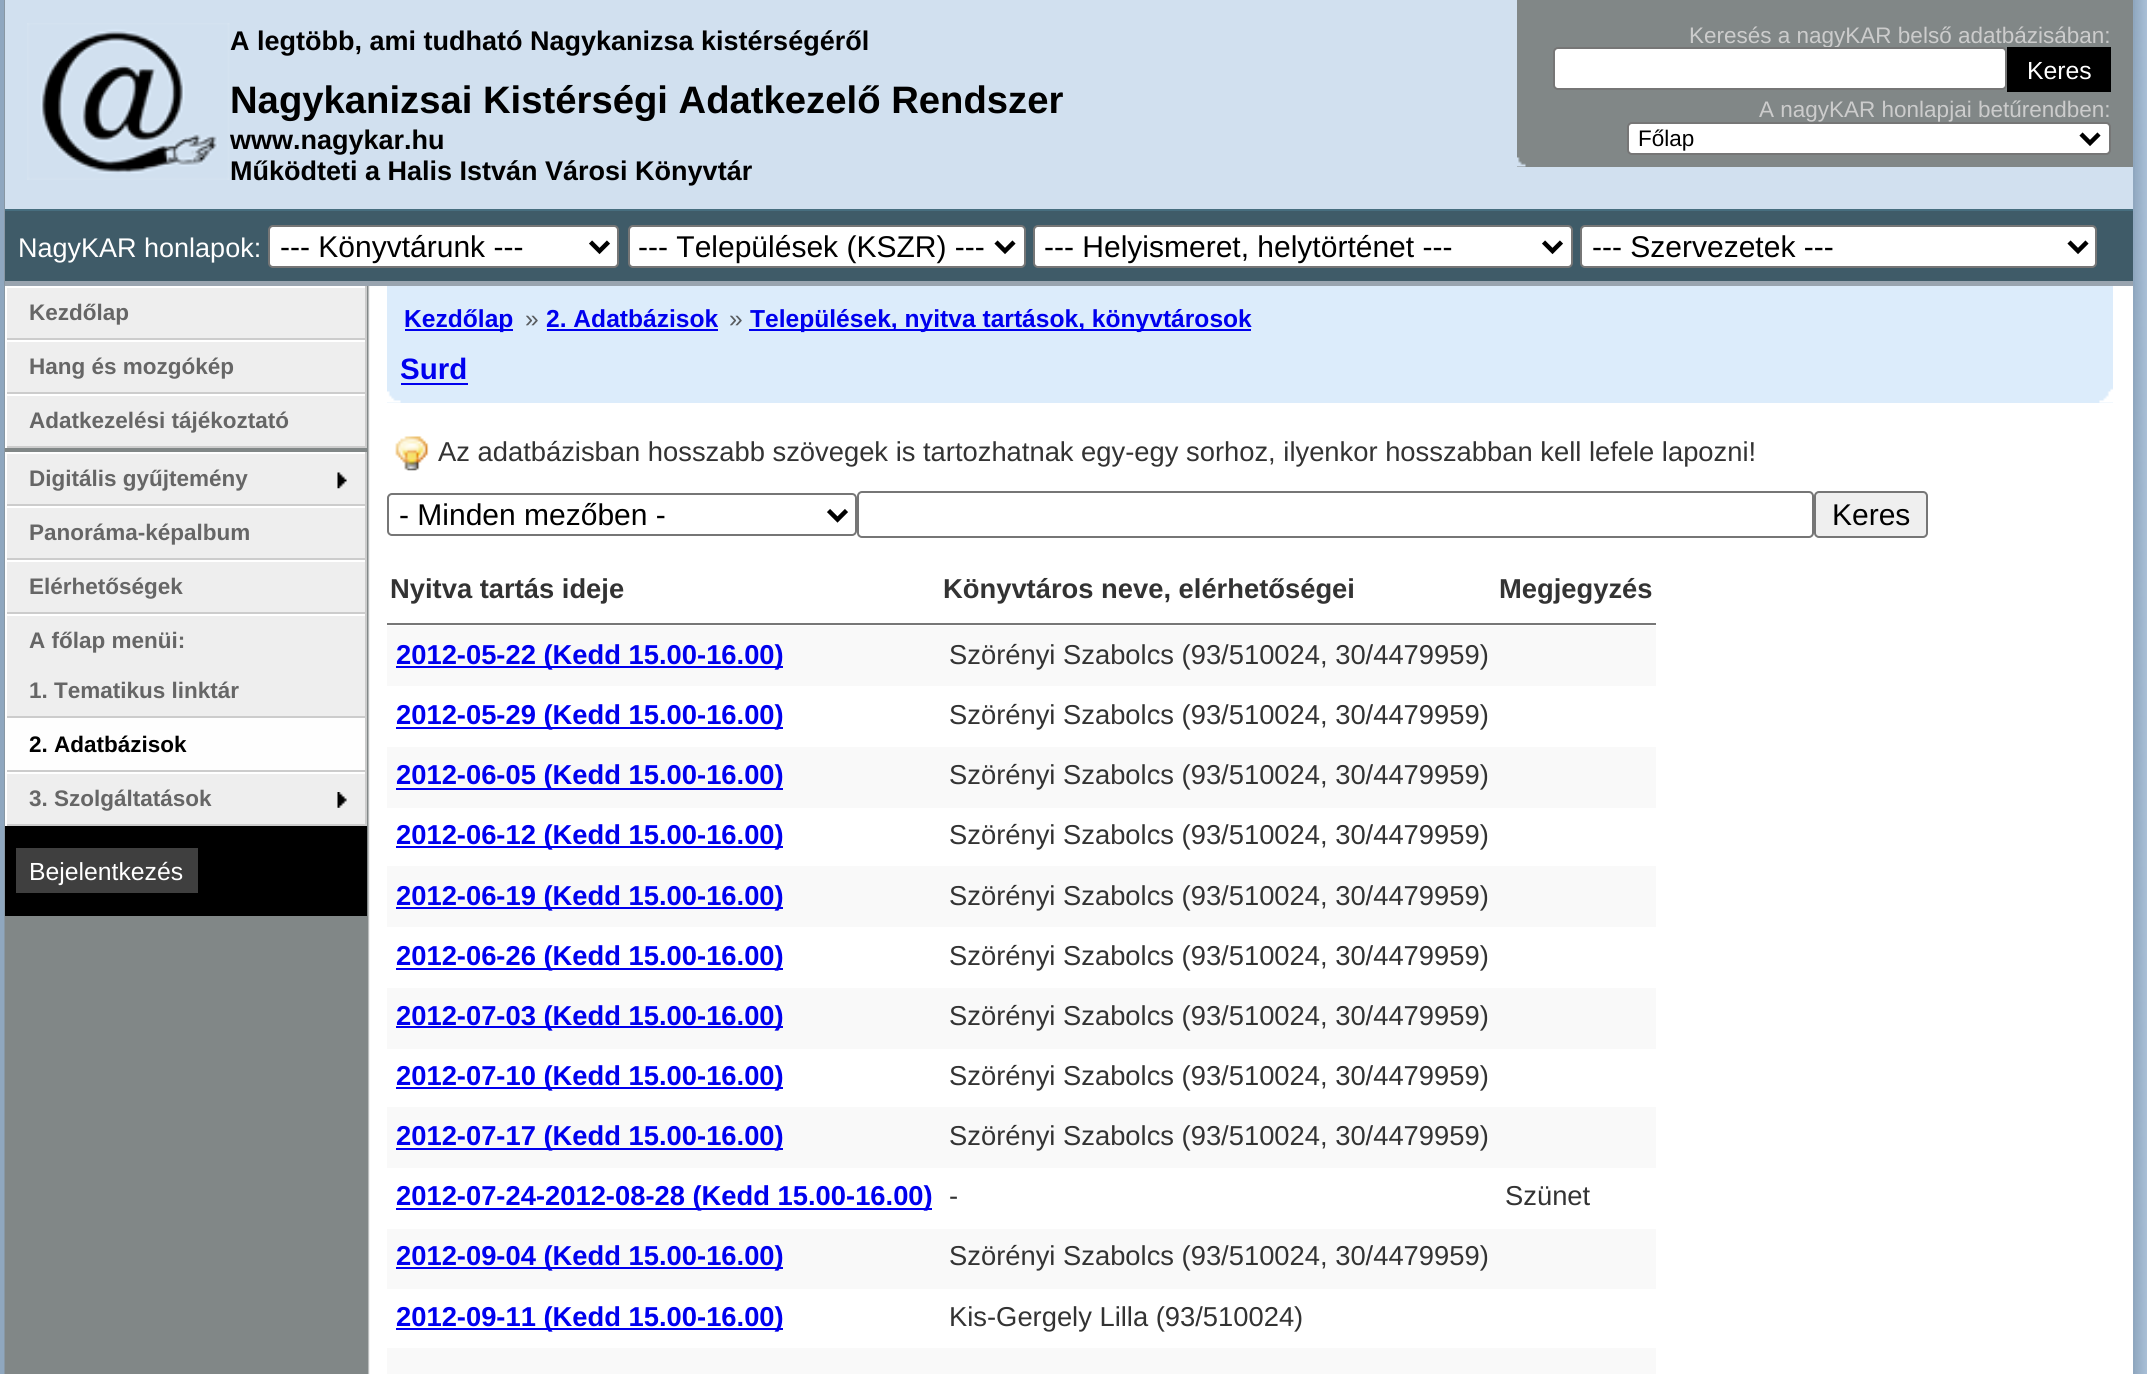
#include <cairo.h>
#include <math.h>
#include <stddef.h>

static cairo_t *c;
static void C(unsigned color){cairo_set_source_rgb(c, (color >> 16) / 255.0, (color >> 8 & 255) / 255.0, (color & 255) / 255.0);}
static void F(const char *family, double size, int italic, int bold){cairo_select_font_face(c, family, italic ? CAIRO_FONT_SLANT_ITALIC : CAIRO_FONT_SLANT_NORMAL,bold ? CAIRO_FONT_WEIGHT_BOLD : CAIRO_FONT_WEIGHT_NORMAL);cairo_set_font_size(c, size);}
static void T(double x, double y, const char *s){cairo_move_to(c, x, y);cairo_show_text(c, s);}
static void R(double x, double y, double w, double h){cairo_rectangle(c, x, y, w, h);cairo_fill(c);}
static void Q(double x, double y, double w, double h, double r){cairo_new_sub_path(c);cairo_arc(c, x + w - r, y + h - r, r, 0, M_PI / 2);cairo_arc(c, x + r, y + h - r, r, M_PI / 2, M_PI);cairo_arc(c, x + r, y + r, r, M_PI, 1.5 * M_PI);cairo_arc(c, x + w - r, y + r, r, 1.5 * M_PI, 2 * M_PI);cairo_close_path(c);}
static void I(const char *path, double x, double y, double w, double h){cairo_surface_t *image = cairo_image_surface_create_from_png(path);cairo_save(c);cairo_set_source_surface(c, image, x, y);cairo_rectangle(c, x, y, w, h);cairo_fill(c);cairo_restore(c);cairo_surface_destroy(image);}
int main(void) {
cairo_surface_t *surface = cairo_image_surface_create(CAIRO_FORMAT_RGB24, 2147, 1374);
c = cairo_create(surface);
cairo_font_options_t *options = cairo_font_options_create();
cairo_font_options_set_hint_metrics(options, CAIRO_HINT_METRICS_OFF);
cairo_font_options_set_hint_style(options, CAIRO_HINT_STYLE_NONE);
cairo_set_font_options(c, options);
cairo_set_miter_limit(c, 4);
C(0x8fa7bf);
cairo_paint(c);
I("1.png",2135,0,12,1374);
C(0xffffff);
R(370,286,1763,1088);
I("2.png",4,0,366,1374);
C(0xd1e0ef);
R(5,0,2128,209);
C(0x99a4af);
R(5,281,2128,5);
F("Liberation Sans",27,0,1);
C(0x000000);
T(230,149,"www.nagykar.hu");
I("3.png",27,23,203,157);
T(230,50,"A legtöbb, ami tudható Nagykanizsa kistérségéről");
F("Liberation Sans",38.25,0,1);
T(230,113,"Nagykanizsai Kistérségi Adatkezelő Rendszer");
F("Liberation Sans",27,0,1);
T(230,180,"Működteti a Halis István Városi Könyvtár");
C(0x818787);
R(1517,0,616,167);
I("4.png",1517,157,9,10);
F("Liberation Sans",22.5,0,0);
C(0xcccccc);
T(1689,43,"Keresés a nagyKAR belső adatbázisában:");
C(0xffffff);
Q(1554,48,452,41,4);
cairo_fill_preserve(c);
C(0x767676);
cairo_stroke(c);
C(0x000000);
R(2007,47,104,45);
F("Liberation Sans",24.75,0,0);
C(0xffffff);
T(2027,79,"Keres");
F("Liberation Sans",22.5,0,0);
C(0xcccccc);
T(1759,117,"A nagyKAR honlapjai betűrendben:");
C(0xffffff);
Q(1628,123,482,31,4);
cairo_fill_preserve(c);
C(0x767676);
cairo_stroke(c);
cairo_new_path(c);
cairo_move_to(c,2081,134);
cairo_line_to(c,2090,143);
cairo_line_to(c,2099,134);
C(0x000000);
cairo_set_line_width(c,4.5);
cairo_stroke(c);
T(1638,146,"Főlap");
C(0x3f5b68);
R(5,211,2128,70);
C(0x476e7f);
R(5,209,2128,2);
F("Liberation Sans",27,0,0);
C(0xffffff);
T(18,257,"NagyKAR honlapok:");
Q(269,226,349,41,4);
cairo_fill_preserve(c);
C(0x767676);
cairo_set_line_width(c,2);
cairo_stroke(c);
cairo_new_path(c);
cairo_move_to(c,590.5,242);
cairo_line_to(c,599.5,251);
cairo_line_to(c,608.5,242);
C(0x000000);
cairo_set_line_width(c,4.5);
cairo_stroke(c);
F("Liberation Sans",30,0,0);
T(280,257,"--- Könyvtárunk ---");
C(0xffffff);
Q(629,226,396,41,4);
cairo_fill_preserve(c);
C(0x767676);
cairo_set_line_width(c,2);
cairo_stroke(c);
cairo_new_path(c);
cairo_move_to(c,996,242);
cairo_line_to(c,1005,251);
cairo_line_to(c,1014,242);
C(0x000000);
cairo_set_line_width(c,4.5);
cairo_stroke(c);
T(638,257,"--- Települések (KSZR) ---");
C(0xffffff);
Q(1034,226,538,41,4);
cairo_fill_preserve(c);
C(0x767676);
cairo_set_line_width(c,2);
cairo_stroke(c);
cairo_new_path(c);
cairo_move_to(c,1543.5,242);
cairo_line_to(c,1552.5,251);
cairo_line_to(c,1561.5,242);
C(0x000000);
cairo_set_line_width(c,4.5);
cairo_stroke(c);
T(1044,257,"--- Helyismeret, helytörténet ---");
C(0xffffff);
Q(1581,226,515,41,4);
cairo_fill_preserve(c);
C(0x767676);
cairo_set_line_width(c,2);
cairo_stroke(c);
cairo_new_path(c);
cairo_move_to(c,2069,242);
cairo_line_to(c,2078,251);
cairo_line_to(c,2087,242);
C(0x000000);
cairo_set_line_width(c,4.5);
cairo_stroke(c);
T(1592,257,"--- Szervezetek ---");
C(0xeeeeee);
R(7,288,358,50);
C(0xffffff);
R(5,286,362,2);
C(0xcccccc);
R(365,286,2,54);
R(5,338,362,2);
C(0xffffff);
R(5,286,2,54);
F("Liberation Sans",22.5,0,1);
C(0x666666);
T(29,320,"Kezdőlap");
C(0xeeeeee);
R(7,342,358,50);
C(0xffffff);
R(5,340,362,2);
C(0xcccccc);
R(365,340,2,54);
R(5,392,362,2);
C(0xffffff);
R(5,340,2,54);
C(0x666666);
T(29,374,"Hang és mozgókép");
C(0xeeeeee);
R(7,396,358,50);
C(0xffffff);
R(5,394,362,2);
C(0xcccccc);
R(365,394,2,54);
R(5,446,362,2);
C(0xffffff);
R(5,394,2,54);
C(0x666666);
T(29,428,"Adatkezelési tájékoztató");
C(0xeeeeee);
R(7,454,358,50);
I("5.png",337,472,10,17);
C(0xffffff);
R(5,452,362,2);
C(0xcccccc);
R(365,452,2,54);
R(5,504,362,2);
C(0xffffff);
R(5,452,2,54);
C(0x666666);
T(29,486,"Digitális gyűjtemény");
C(0xeeeeee);
R(7,508,358,50);
C(0xffffff);
R(5,506,362,2);
C(0xcccccc);
R(365,506,2,54);
R(5,558,362,2);
C(0xffffff);
R(5,506,2,54);
C(0x666666);
T(29,540,"Panoráma-képalbum");
C(0xeeeeee);
R(7,562,358,50);
C(0xffffff);
R(5,560,362,2);
C(0xcccccc);
R(365,560,2,54);
R(5,612,362,2);
C(0xffffff);
R(5,560,2,54);
C(0x666666);
T(29,594,"Elérhetőségek");
C(0xeeeeee);
R(7,616,358,100);
C(0xffffff);
R(5,614,362,2);
C(0xcccccc);
R(365,614,2,158);
R(5,716,362,2);
C(0xffffff);
R(5,614,2,104);
C(0x666666);
T(29,648,"A főlap menüi:");
T(29,698,"1. Tematikus linktár");
C(0xfefefe);
R(7,718,358,52);
C(0xcccccc);
R(5,770,362,2);
C(0xffffff);
R(5,718,2,54);
C(0x000000);
T(29,752,"2. Adatbázisok");
C(0xeeeeee);
R(7,774,358,50);
I("6.png",337,792,10,16);
C(0xffffff);
R(5,772,362,2);
C(0xcccccc);
R(365,772,2,54);
R(5,824,362,2);
C(0xffffff);
R(5,772,2,54);
C(0x666666);
T(29,806,"3. Szolgáltatások");
C(0x000000);
R(5,826,362,90);
C(0x3f3f3f);
R(16,848,182,45);
F("Liberation Sans",24.75,0,0);
C(0xffffff);
T(29,880,"Bejelentkezés");
C(0xdcecfb);
R(387,286,1726,117);
I("7.png",387,391,14,12);
I("8.png",2099,388,14,15);
C(0x0000ee);
R(405,329,108,2);
F("Liberation Sans",24.6,0,1);
T(404,327,"Kezdőlap");
F("Liberation Sans",24.6,0,0);
C(0x595c5f);
T(525,327,"»");
F("Liberation Sans",24.6,0,1);
C(0x0000ee);
T(546,327,"2. Adatbázisok");
R(547,329,171,2);
F("Liberation Sans",24.6,0,0);
C(0x595c5f);
T(729,327,"»");
C(0x0000ee);
R(749,329,502,2);
F("Liberation Sans",24.6,0,1);
T(750,327,"Települések, nyitva tartások, könyvtárosok");
F("Liberation Sans",29.5,0,1);
T(400,379,"Surd");
R(401,383,67,2);
I("9.png",395,436,34,35);
F("Liberation Sans",27.35,0,0);
C(0x333333);
T(438,461,"Az adatbázisban hosszabb szövegek is tartozhatnak egy-egy sorhoz, ilyenkor hosszabban kell lefele lapozni!");
Q(388,494,468,41,4);
C(0x767676);
cairo_set_line_width(c,2);
cairo_stroke(c);
cairo_new_path(c);
cairo_move_to(c,828.5,510.5);
cairo_line_to(c,837.5,519.5);
cairo_line_to(c,846.5,510.5);
C(0x000000);
cairo_set_line_width(c,4.5);
cairo_stroke(c);
F("Liberation Sans",30,0,0);
T(399,525,"- Minden mezőben -");
Q(858,492,955,45,4);
C(0x767676);
cairo_set_line_width(c,2);
cairo_stroke(c);
C(0xefefef);
Q(1815,492,112,45,4);
cairo_fill_preserve(c);
C(0x767676);
cairo_stroke(c);
C(0x000000);
T(1832,525,"Keres");
F("Liberation Sans",27.35,0,1);
C(0x333333);
T(390,598,"Nyitva tartás ideje");
T(943,598,"Könyvtáros neve, elérhetőségei");
C(0x777777);
R(387,623,1269,2);
C(0x333333);
T(1499,598,"Megjegyzés");
C(0xf9f9f9);
R(387,626,1269,60);
C(0x0000ee);
R(396,666,387,2);
T(396,664,"2012-05-22 (Kedd 15.00-16.00)");
F("Liberation Sans",27.35,0,0);
C(0x333333);
T(949,664,"Szörényi Szabolcs (93/510024, 30/4479959)");
C(0x0000ee);
R(396,727,387,2);
F("Liberation Sans",27.35,0,1);
T(396,724,"2012-05-29 (Kedd 15.00-16.00)");
F("Liberation Sans",27.35,0,0);
C(0x333333);
T(949,724,"Szörényi Szabolcs (93/510024, 30/4479959)");
C(0xf9f9f9);
R(387,747,1269,61);
C(0x0000ee);
R(396,788,387,2);
F("Liberation Sans",27.35,0,1);
T(396,784,"2012-06-05 (Kedd 15.00-16.00)");
F("Liberation Sans",27.35,0,0);
C(0x333333);
T(949,784,"Szörényi Szabolcs (93/510024, 30/4479959)");
C(0x0000ee);
R(396,846,387,2);
F("Liberation Sans",27.35,0,1);
T(396,844,"2012-06-12 (Kedd 15.00-16.00)");
F("Liberation Sans",27.35,0,0);
C(0x333333);
T(949,844,"Szörényi Szabolcs (93/510024, 30/4479959)");
C(0xf9f9f9);
R(387,866,1269,61);
C(0x0000ee);
R(396,907,387,2);
F("Liberation Sans",27.35,0,1);
T(396,905,"2012-06-19 (Kedd 15.00-16.00)");
F("Liberation Sans",27.35,0,0);
C(0x333333);
T(949,905,"Szörényi Szabolcs (93/510024, 30/4479959)");
C(0x0000ee);
R(396,968,387,2);
F("Liberation Sans",27.35,0,1);
T(396,965,"2012-06-26 (Kedd 15.00-16.00)");
F("Liberation Sans",27.35,0,0);
C(0x333333);
T(949,965,"Szörényi Szabolcs (93/510024, 30/4479959)");
C(0xf9f9f9);
R(387,988,1269,61);
C(0x0000ee);
R(396,1026,387,2);
F("Liberation Sans",27.35,0,1);
T(396,1025,"2012-07-03 (Kedd 15.00-16.00)");
F("Liberation Sans",27.35,0,0);
C(0x333333);
T(949,1025,"Szörényi Szabolcs (93/510024, 30/4479959)");
C(0x0000ee);
R(396,1087,387,2);
F("Liberation Sans",27.35,0,1);
T(396,1085,"2012-07-10 (Kedd 15.00-16.00)");
F("Liberation Sans",27.35,0,0);
C(0x333333);
T(949,1085,"Szörényi Szabolcs (93/510024, 30/4479959)");
C(0xf9f9f9);
R(387,1107,1269,61);
C(0x0000ee);
R(396,1148,387,2);
F("Liberation Sans",27.35,0,1);
T(396,1145,"2012-07-17 (Kedd 15.00-16.00)");
F("Liberation Sans",27.35,0,0);
C(0x333333);
T(949,1145,"Szörényi Szabolcs (93/510024, 30/4479959)");
C(0x0000ee);
R(396,1208,536,2);
F("Liberation Sans",27.35,0,1);
T(396,1205,"2012-07-24-2012-08-28 (Kedd 15.00-16.00)");
F("Liberation Sans",27.35,0,0);
C(0x333333);
T(949,1205,"-");
T(1505,1205,"Szünet");
C(0xf9f9f9);
R(387,1229,1269,60);
C(0x0000ee);
R(396,1267,387,2);
F("Liberation Sans",27.35,0,1);
T(396,1265,"2012-09-04 (Kedd 15.00-16.00)");
F("Liberation Sans",27.35,0,0);
C(0x333333);
T(949,1265,"Szörényi Szabolcs (93/510024, 30/4479959)");
C(0x0000ee);
R(396,1328,387,2);
F("Liberation Sans",27.35,0,1);
T(396,1326,"2012-09-11 (Kedd 15.00-16.00)");
F("Liberation Sans",27.35,0,0);
C(0x333333);
T(949,1326,"Kis-Gergely Lilla (93/510024)");
C(0xf9f9f9);
R(387,1348,1269,26);
cairo_surface_write_to_png(surface, "o.png");
cairo_font_options_destroy(options);
cairo_destroy(c);
cairo_surface_destroy(surface);
return 0;
}
